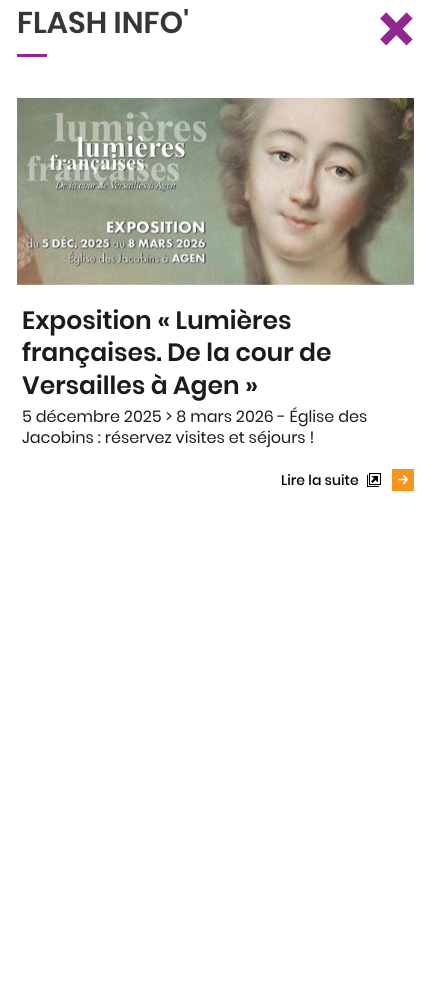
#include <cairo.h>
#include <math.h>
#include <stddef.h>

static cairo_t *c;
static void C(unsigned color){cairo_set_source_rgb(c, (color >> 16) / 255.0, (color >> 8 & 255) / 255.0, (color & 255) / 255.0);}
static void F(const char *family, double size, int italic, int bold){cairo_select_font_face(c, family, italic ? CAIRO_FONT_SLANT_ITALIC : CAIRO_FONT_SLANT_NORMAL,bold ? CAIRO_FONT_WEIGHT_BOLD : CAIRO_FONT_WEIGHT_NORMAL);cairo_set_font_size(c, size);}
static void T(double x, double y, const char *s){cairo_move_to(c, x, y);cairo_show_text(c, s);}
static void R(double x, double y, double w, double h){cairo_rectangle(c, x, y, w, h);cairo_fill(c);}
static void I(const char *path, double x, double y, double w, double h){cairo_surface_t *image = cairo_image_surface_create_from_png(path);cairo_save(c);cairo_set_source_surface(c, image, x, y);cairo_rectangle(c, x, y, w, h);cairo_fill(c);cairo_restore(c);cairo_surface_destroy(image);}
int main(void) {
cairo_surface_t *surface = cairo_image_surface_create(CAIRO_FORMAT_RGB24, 431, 989);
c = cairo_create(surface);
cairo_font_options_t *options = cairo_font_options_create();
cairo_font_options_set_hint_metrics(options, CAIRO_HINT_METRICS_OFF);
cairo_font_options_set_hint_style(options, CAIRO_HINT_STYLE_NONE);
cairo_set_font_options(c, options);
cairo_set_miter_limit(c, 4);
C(0xffffff);
cairo_paint(c);
F("Poppins SemiBold",30,0,0);
C(0x363636);
T(17,33,"FLASH INFO'");
C(0x92278f);
R(17,54,30,3);
I("1.png",17,98,397,187);
F("Poppins SemiBold",25,0,0);
C(0x1b1b1b);
T(22,329,"Exposition « Lumières");
T(22,361,"françaises. De la cour de");
T(22,394,"Versailles à Agen »");
F("Poppins",16,0,0);
T(22,422,"5 décembre 2025 > 8 mars 2026 - Église des");
T(22,443,"Jacobins : réservez visites et séjours !");
F("Poppins Medium",14,0,0);
C(0x000000);
T(281,485,"Lire la suite");
C(0xf6951d);
R(392,469,22,22);
I("2.png",398,475,10,9);
I("3.png",367,473,14,14);
F("Roboto",66,0,1);
C(0x92278f);
T(378,52,"×");
cairo_surface_write_to_png(surface, "o.png");
cairo_font_options_destroy(options);
cairo_destroy(c);
cairo_surface_destroy(surface);
return 0;
}
